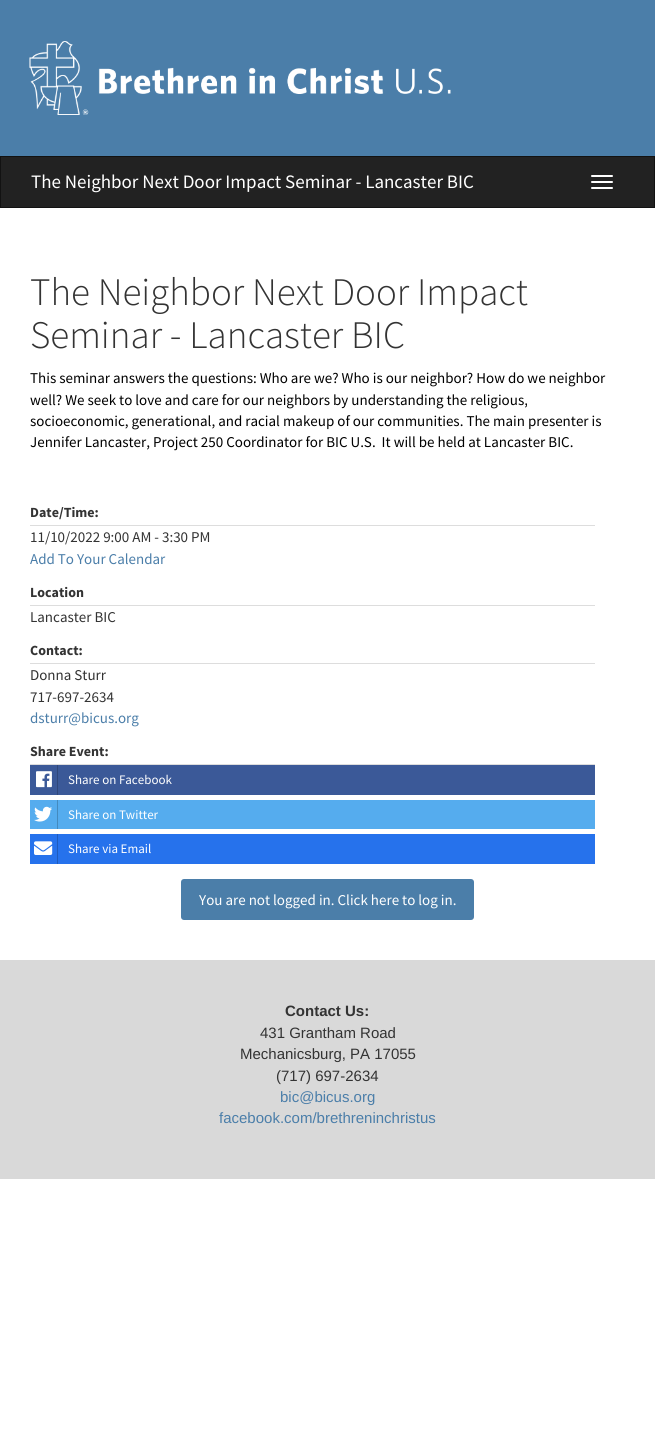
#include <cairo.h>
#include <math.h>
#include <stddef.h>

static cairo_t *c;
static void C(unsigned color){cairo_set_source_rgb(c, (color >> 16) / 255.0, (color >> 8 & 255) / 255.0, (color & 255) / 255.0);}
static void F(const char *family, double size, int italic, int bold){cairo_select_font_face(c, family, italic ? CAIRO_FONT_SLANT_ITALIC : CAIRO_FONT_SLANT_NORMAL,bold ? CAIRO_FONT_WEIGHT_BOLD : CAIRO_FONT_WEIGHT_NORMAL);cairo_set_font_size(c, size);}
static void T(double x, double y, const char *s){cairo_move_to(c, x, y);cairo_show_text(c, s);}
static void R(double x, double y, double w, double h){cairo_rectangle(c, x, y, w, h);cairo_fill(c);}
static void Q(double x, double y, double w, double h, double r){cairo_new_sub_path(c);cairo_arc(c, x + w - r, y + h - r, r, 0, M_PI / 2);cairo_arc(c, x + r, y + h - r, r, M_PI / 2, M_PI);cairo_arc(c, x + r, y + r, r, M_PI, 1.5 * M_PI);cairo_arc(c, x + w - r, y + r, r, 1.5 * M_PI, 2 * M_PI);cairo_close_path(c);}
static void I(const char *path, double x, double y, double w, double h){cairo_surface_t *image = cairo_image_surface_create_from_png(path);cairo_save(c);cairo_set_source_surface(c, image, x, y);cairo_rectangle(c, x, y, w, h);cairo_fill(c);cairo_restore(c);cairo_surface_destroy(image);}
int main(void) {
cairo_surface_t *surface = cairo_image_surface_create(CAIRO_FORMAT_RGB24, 655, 1440);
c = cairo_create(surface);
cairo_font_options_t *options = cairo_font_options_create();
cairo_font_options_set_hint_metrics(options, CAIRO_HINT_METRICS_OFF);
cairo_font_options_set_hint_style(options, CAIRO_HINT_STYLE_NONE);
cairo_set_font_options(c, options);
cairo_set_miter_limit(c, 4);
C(0xffffff);
cairo_paint(c);
C(0x4b7ea9);
R(0,0,655,156);
I("1.png",29,41,422,74);
C(0x222222);
cairo_rectangle(c,.5,156.5,654,51);
cairo_fill_preserve(c);
C(0x121212);
cairo_set_line_width(c,1);
cairo_stroke(c);
F("Source Sans Pro",19,0,0);
C(0xffffff);
T(31,188,"The Neighbor Next Door Impact Seminar - Lancaster BIC");
Q(591,175,22,2,1);
cairo_fill(c);
Q(591,181,22,2,1);
cairo_fill(c);
Q(591,187,22,2,1);
cairo_fill(c);
F("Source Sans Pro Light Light",39,0,0);
C(0x333333);
T(30,305,"The Neighbor Next Door Impact");
T(30,348,"Seminar - Lancaster BIC");
F("Source Sans Pro",15,0,0);
C(0x000000);
T(30,383,"This seminar answers the questions: Who are we? Who is our neighbor? How do we neighbor");
T(30,405,"well? We seek to love and care for our neighbors by understanding the religious,");
T(30,426,"socioeconomic, generational, and racial makeup of our communities. The main presenter is");
T(30,447,"Jennifer Lancaster, Project 250 Coordinator for BIC U.S.  It will be held at Lancaster BIC.");
C(0xdddddd);
R(30,525,565,1);
F("Source Sans Pro",14,0,1);
C(0x333333);
T(30,517,"Date/Time:");
F("Source Sans Pro",15,0,0);
T(30,542,"11/10/2022 9:00 AM - 3:30 PM");
C(0x4b7ea9);
T(30,564,"Add To Your Calendar");
C(0xdddddd);
R(30,605,565,1);
F("Source Sans Pro",14,0,1);
C(0x333333);
T(30,597,"Location");
F("Source Sans Pro",15,0,0);
T(30,622,"Lancaster BIC");
C(0xdddddd);
R(30,663,565,1);
F("Source Sans Pro",14,0,1);
C(0x333333);
T(30,655,"Contact:");
F("Source Sans Pro",15,0,0);
T(30,680,"Donna Sturr");
T(30,702,"717-697-2634");
C(0x4b7ea9);
T(30,723,"dsturr@bicus.org");
C(0xdddddd);
R(30,764,565,1);
F("Source Sans Pro",14,0,1);
C(0x333333);
T(30,756,"Share Event:");
C(0x3b5998);
R(30,765,565,30);
C(0x2f477a);
R(57,765,1,30);
I("2.png",36,771,16,17);
F("Source Sans Pro",13,0,0);
C(0xffffff);
T(68,784,"Share on Facebook");
C(0x55acee);
R(30,800,565,29);
C(0x448abe);
R(57,800,1,29);
I("3.png",34,806,18,16);
C(0xffffff);
T(68,819,"Share on Twitter");
C(0x2672ec);
R(30,834,565,30);
C(0x1e5bbd);
R(57,834,1,30);
I("4.png",34,841,19,14);
C(0xffffff);
T(68,853,"Share via Email");
C(0x4b7ea9);
Q(181,879,293,41,3);
cairo_fill(c);
F("Source Sans Pro",15,0,0);
C(0xffffff);
T(199,905,"You are not logged in. Click here to log in.");
C(0xd9d9d9);
R(0,960,655,219);
F("Liberation Sans",15,0,1);
C(0x333333);
T(285,1016,"Contact Us:");
F("Liberation Sans",15,0,0);
T(260,1038,"431 Grantham Road");
T(240,1059,"Mechanicsburg, PA 17055");
T(276,1081,"(717) 697-2634");
C(0x4b7ea9);
T(280,1102,"bic@bicus.org");
T(219,1123,"facebook.com/brethreninchristus");
cairo_surface_write_to_png(surface, "o.png");
cairo_font_options_destroy(options);
cairo_destroy(c);
cairo_surface_destroy(surface);
return 0;
}
